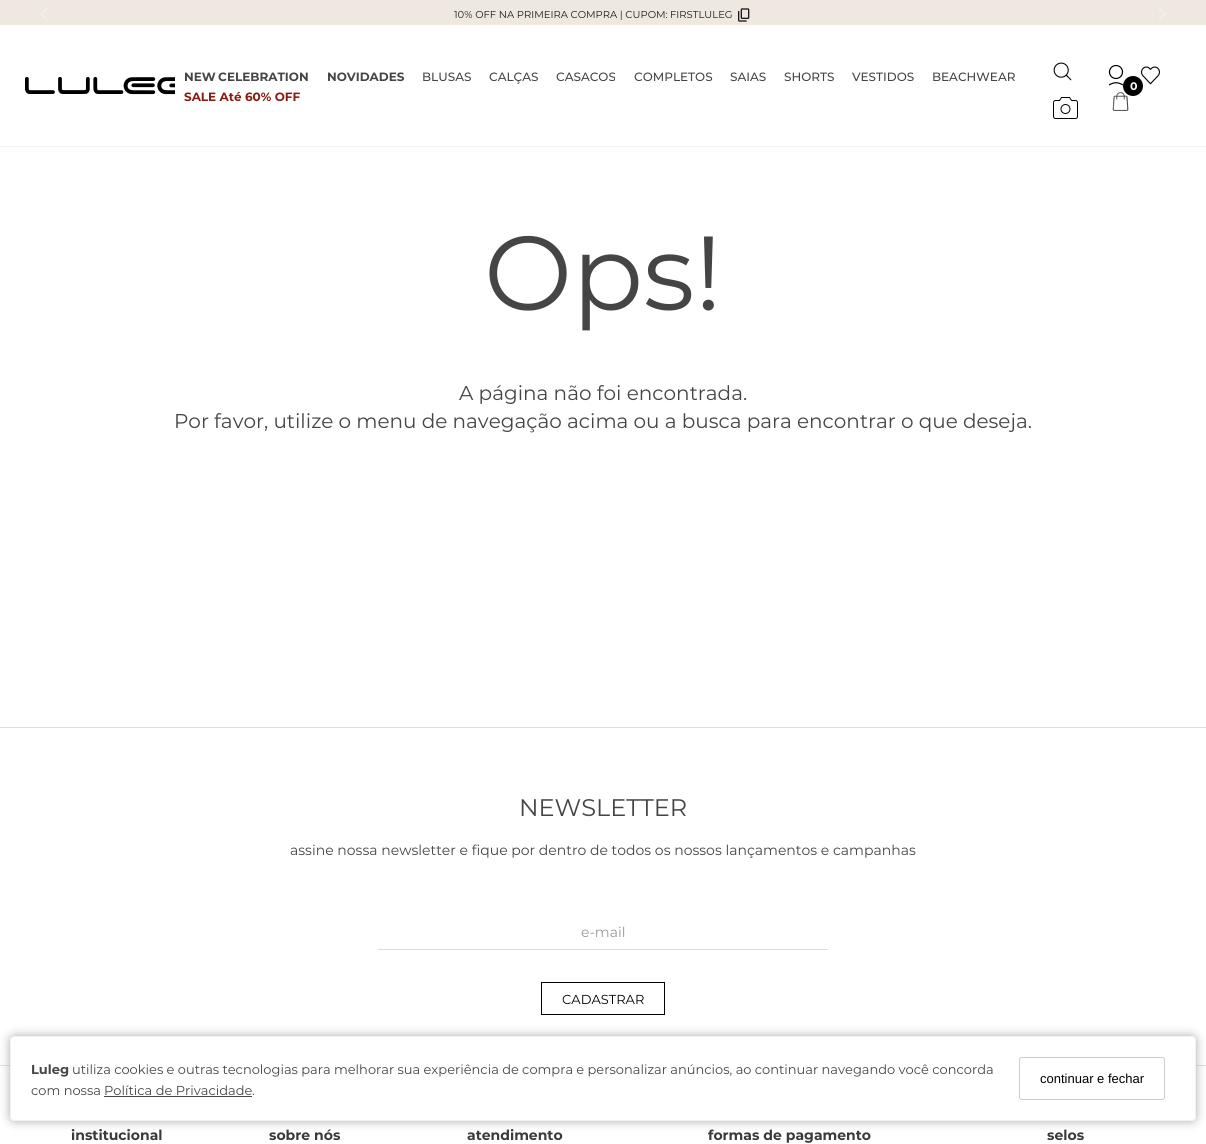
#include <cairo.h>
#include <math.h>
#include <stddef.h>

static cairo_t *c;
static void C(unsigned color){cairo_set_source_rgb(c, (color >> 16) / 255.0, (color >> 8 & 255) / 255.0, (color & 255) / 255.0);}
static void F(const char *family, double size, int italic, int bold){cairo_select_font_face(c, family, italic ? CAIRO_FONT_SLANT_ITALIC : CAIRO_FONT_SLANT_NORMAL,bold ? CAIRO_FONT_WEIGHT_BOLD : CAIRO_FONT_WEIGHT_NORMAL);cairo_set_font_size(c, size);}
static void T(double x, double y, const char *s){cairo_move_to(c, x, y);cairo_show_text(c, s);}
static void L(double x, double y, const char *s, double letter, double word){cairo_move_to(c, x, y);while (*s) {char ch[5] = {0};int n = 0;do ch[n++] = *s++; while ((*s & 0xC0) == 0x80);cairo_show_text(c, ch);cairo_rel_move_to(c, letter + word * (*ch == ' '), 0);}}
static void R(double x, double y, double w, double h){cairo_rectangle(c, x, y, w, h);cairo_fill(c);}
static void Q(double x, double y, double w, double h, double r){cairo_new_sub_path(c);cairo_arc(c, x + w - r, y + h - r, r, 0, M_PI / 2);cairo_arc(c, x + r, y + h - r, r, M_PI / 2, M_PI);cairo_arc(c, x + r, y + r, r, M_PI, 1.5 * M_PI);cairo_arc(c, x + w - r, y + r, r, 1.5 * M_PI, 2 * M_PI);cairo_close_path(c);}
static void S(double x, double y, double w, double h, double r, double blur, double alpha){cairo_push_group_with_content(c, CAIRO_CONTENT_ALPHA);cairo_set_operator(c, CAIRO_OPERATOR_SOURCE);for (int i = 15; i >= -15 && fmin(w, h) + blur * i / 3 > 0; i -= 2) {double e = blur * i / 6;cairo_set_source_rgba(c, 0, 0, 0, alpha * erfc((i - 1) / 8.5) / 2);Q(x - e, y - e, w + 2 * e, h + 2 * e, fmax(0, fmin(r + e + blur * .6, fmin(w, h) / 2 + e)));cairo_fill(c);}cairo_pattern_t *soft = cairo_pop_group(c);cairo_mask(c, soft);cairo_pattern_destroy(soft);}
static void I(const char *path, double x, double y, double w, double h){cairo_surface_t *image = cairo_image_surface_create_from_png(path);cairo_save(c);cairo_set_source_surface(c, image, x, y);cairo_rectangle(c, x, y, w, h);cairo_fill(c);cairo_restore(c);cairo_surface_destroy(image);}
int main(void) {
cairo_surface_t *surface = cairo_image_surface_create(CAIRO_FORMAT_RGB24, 1206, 1144);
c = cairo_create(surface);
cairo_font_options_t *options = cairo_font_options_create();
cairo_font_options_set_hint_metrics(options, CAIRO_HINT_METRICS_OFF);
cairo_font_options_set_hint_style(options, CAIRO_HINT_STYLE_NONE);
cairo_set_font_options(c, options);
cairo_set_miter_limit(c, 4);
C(0xffffff);
cairo_paint(c);
C(0xeee8e0);
R(0,0,1206,25);
I("1.png",41,8,6,12);
I("2.png",1159,8,6,12);
F("Montserrat",10,0,0);
C(0x1a1a1a);
T(454,18,"10% OFF NA PRIMEIRA COMPRA | CUPOM:");
T(670,18,"FIRSTLULEG");
I("3.png",738,8,12,14);
C(0xf2f2f2);
R(0,146,1206,1);
I("4.png",25,76,150,19);
F("Montserrat",12,0,1);
C(0x454545);
L(184,81,"NEW CELEBRATION",0,-1);
T(327,81,"NOVIDADES");
F("Montserrat Medium",12,0,0);
T(422,81,"BLUSAS");
T(489,81,"CALÇAS");
T(556,81,"CASACOS");
T(634,81,"COMPLETOS");
T(730,81,"SAIAS");
T(784,81,"SHORTS");
T(852,81,"VESTIDOS");
T(932,81,"BEACHWEAR");
F("Montserrat",12,0,1);
C(0x861c10);
T(184,101,"SALE Até 60% OFF");
I("5.png",1053,62,19,19);
I("6.png",1053,97,25,22);
cairo_arc(c,1116,72,6.5,0,2 * M_PI);
C(0x000000);
cairo_set_line_width(c,1.2);
cairo_stroke(c);
cairo_new_path(c);
cairo_move_to(c,1109,85);
cairo_curve_to(c,1114,82,1118,82,1123,85);
cairo_stroke(c);
I("7.png",1141,66,19,19);
I("8.png",1112,92,17,19);
cairo_arc(c,1133,86,10,0,2 * M_PI);
cairo_fill(c);
F("Montserrat",11,0,1);
C(0xffffff);
T(1130,90,"0");
F("Montserrat",105,0,0);
C(0x454545);
T(484,310,"Ops!");
F("Montserrat",20,0,0);
T(459,400,"A página não foi encontrada.");
L(174,428,"Por favor, utilize o menu de navegação acima ou a busca para encontrar o que deseja.",0,-.1);
C(0xdddddd);
R(0,727,1206,1);
F("Montserrat",24,0,0);
C(0x454545);
T(519,816,"NEWSLETTER");
F("Montserrat",14,0,0);
T(290,855,"assine nossa newsletter e fique por dentro de todos os nossos lançamentos e campanhas");
C(0xdddddd);
R(378,949,450,1);
C(0x999999);
T(581,937,"e-mail");
cairo_rectangle(c,541.5,982.5,123,32);
C(0x000000);
cairo_set_line_width(c,1);
cairo_stroke(c);
F("Montserrat",13,0,0);
T(562,1004,"CADASTRAR");
C(0xdddddd);
R(0,1065,1206,1);
cairo_save(c);
cairo_set_fill_rule(c,CAIRO_FILL_RULE_EVEN_ODD);
cairo_new_path(c);
cairo_move_to(c,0,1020);
cairo_line_to(c,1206,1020);
cairo_line_to(c,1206,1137);
cairo_line_to(c,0,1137);
cairo_close_path(c);
cairo_move_to(c,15,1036);
cairo_line_to(c,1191,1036);
cairo_curve_to(c,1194,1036,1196,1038,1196,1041);
cairo_line_to(c,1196,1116);
cairo_curve_to(c,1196,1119,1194,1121,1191,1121);
cairo_line_to(c,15,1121);
cairo_curve_to(c,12,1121,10,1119,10,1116);
cairo_line_to(c,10,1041);
cairo_curve_to(c,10,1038,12,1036,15,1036);
cairo_close_path(c);
cairo_clip(c);
C(0xaaaaaa);
S(10,1036,1186,85,5,5,1);
cairo_restore(c);
cairo_set_source_rgba(c,1,1,1,0.98);
Q(10.5,1036.5,1185,84,4.5);
cairo_fill_preserve(c);
C(0xf2f2f2);
cairo_stroke(c);
F("Montserrat",13,0,1);
C(0x454545);
T(31,1074,"Luleg");
F("Montserrat",13,0,0);
L(72,1074,"utiliza cookies e outras tecnologias para melhorar sua experiência de compra e personalizar anúncios, ao continuar navegando você concorda",0,-.1);
T(31,1095,"com nossa");
T(104,1095,"Política de Privacidade");
R(104,1096,148,1);
T(252,1095,".");
Q(1019.5,1057.5,145,42,2.5);
C(0xcccccc);
cairo_stroke(c);
F("Liberation Sans",13,0,0);
C(0x000000);
T(1040,1083,"continuar e fechar");
F("Montserrat",14,0,1);
C(0x3a3a3a);
T(71,1140,"institucional");
T(269,1140,"sobre nós");
T(467,1140,"atendimento");
T(708,1140,"formas de pagamento");
T(1047,1140,"selos");
cairo_surface_write_to_png(surface, "o.png");
cairo_font_options_destroy(options);
cairo_destroy(c);
cairo_surface_destroy(surface);
return 0;
}
